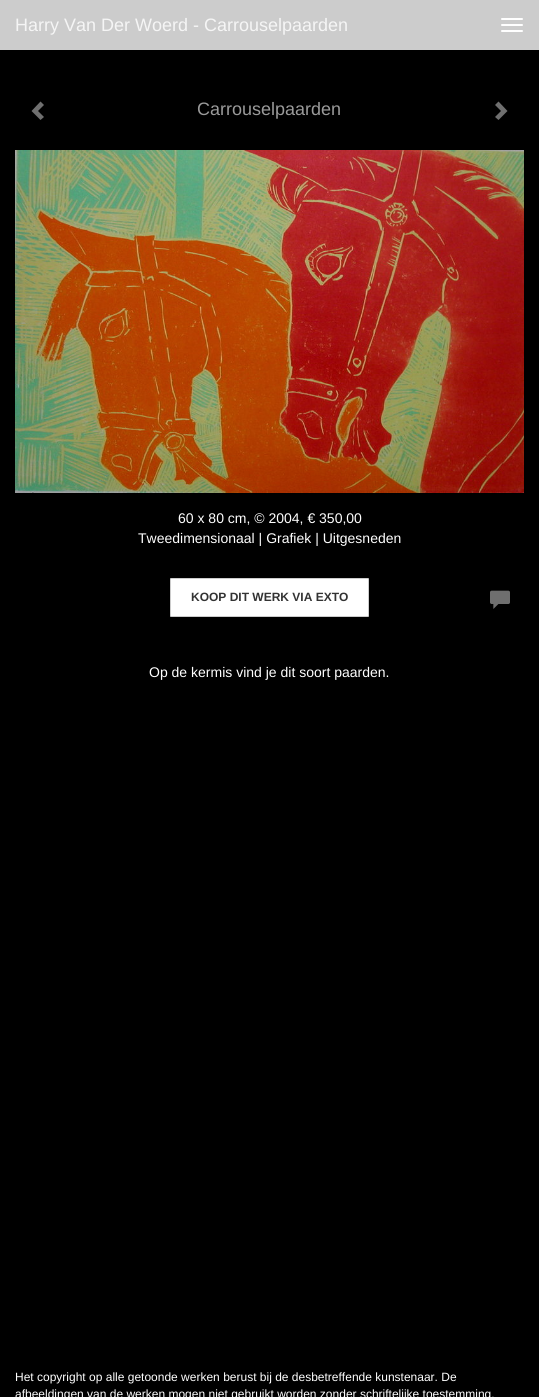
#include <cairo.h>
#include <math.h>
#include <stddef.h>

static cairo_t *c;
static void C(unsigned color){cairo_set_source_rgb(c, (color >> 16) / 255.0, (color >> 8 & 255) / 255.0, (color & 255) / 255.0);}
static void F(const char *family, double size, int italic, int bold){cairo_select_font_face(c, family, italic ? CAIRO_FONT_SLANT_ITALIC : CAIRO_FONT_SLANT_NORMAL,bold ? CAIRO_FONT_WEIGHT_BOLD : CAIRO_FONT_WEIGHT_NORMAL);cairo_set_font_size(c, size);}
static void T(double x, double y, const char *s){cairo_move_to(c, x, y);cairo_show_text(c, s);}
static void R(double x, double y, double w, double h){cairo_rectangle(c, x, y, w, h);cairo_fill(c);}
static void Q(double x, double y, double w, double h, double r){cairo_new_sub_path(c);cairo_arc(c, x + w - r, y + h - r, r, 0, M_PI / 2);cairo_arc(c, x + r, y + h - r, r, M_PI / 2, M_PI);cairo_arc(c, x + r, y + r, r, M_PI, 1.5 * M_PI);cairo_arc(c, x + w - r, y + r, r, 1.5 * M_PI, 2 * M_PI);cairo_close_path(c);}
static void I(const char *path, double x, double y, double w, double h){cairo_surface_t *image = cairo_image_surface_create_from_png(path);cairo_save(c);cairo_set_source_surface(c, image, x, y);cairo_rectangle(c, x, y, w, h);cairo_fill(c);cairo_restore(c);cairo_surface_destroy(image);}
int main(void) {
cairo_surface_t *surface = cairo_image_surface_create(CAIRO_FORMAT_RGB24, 539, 1397);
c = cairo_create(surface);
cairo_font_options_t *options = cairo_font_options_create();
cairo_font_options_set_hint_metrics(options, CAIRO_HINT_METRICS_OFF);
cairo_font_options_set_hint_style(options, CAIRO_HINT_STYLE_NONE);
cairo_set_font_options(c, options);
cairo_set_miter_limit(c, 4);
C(0x000000);
cairo_paint(c);
C(0xcccccc);
R(0,0,539,50);
F("Liberation Sans",18,0,0);
C(0xf5f5f5);
T(15,31,"Harry Van Der Woerd - Carrouselpaarden");
C(0xffffff);
Q(501,18,22,2,1);
cairo_fill(c);
Q(501,24,22,2,1);
cairo_fill(c);
Q(501,30,22,2,1);
cairo_fill(c);
C(0x6f6f6f);
cairo_new_path(c);
cairo_move_to(c,44,105);
cairo_line_to(c,38,111);
cairo_line_to(c,44,117);
cairo_line_to(c,40.5,120);
cairo_line_to(c,31.5,111);
cairo_line_to(c,40.5,101.5);
cairo_close_path(c);
cairo_fill(c);
C(0x9a9a9a);
T(197,115,"Carrouselpaarden");
C(0x6f6f6f);
cairo_new_path(c);
cairo_move_to(c,507.5,111);
cairo_line_to(c,498.5,120);
cairo_line_to(c,495,117);
cairo_line_to(c,501,111);
cairo_line_to(c,495,105);
cairo_line_to(c,498.5,101.5);
cairo_close_path(c);
cairo_fill(c);
I("1.png",15,150,509,343);
F("Liberation Sans",14,0,0);
C(0xffffff);
T(178,523,"60 x 80 cm, © 2004, € 350,00");
T(138,543,"Tweedimensionaal | Grafiek | Uitgesneden");
Q(170.5,578.5,198,38,.5);
cairo_fill_preserve(c);
C(0xcccccc);
cairo_set_line_width(c,1);
cairo_stroke(c);
F("Liberation Sans",12,0,1);
C(0x333333);
T(191,601,"KOOP DIT WERK VIA EXTO");
I("2.png",490,590,20,19);
F("Liberation Sans",14,0,0);
C(0xffffff);
T(149,677,"Op de kermis vind je dit soort paarden.");
F("Liberation Sans",12,0,0);
T(15,1381,"Het copyright op alle getoonde werken berust bij de desbetreffende kunstenaar. De");
T(15,1398,"afbeeldingen van de werken mogen niet gebruikt worden zonder schriftelijke toestemming.");
cairo_surface_write_to_png(surface, "o.png");
cairo_font_options_destroy(options);
cairo_destroy(c);
cairo_surface_destroy(surface);
return 0;
}
